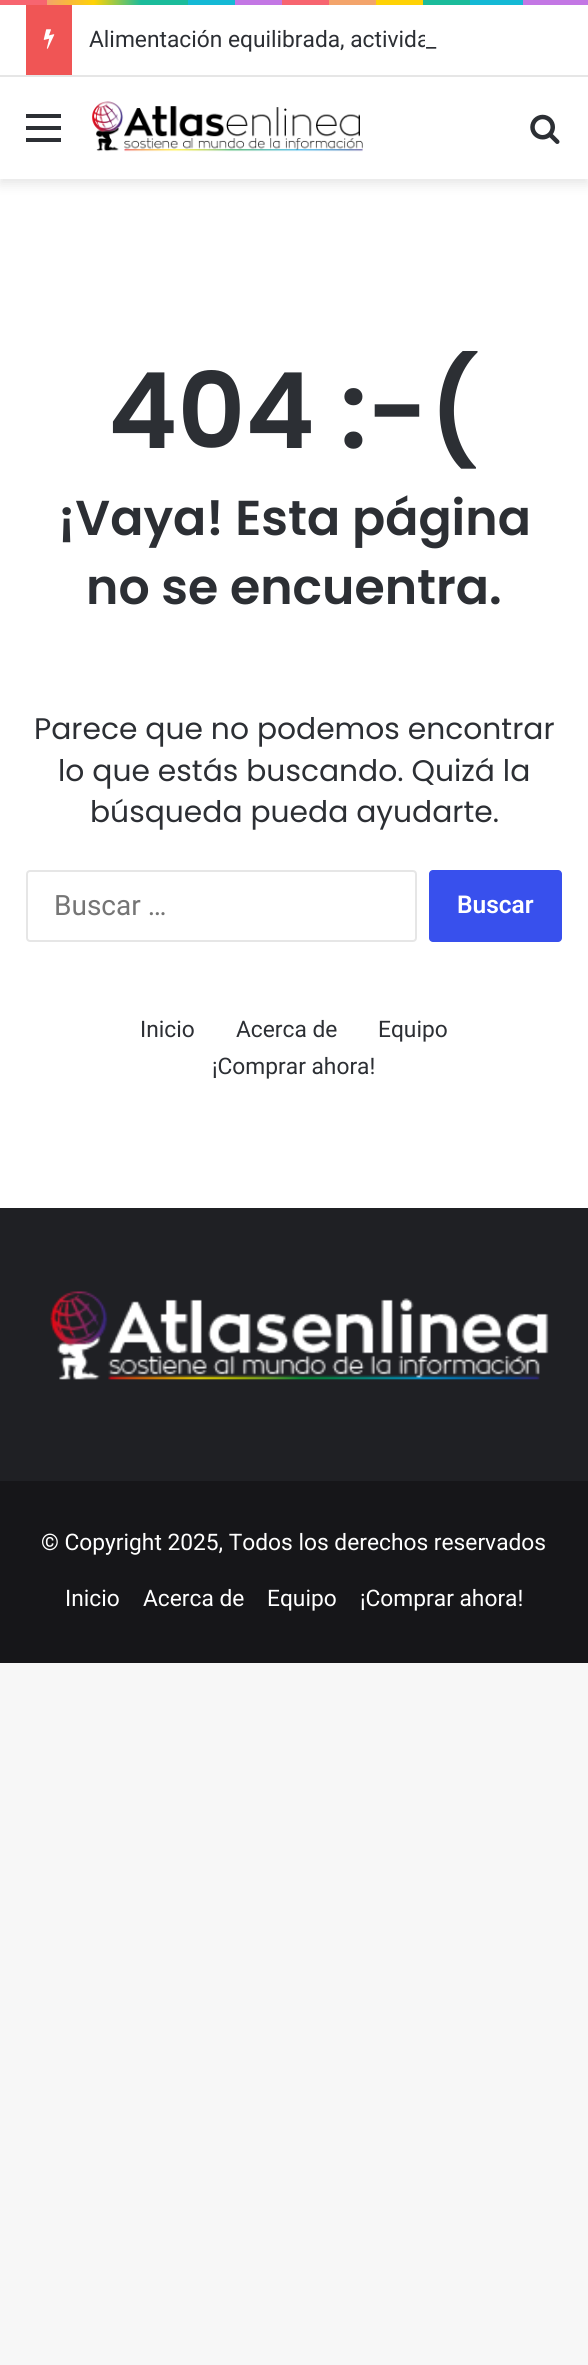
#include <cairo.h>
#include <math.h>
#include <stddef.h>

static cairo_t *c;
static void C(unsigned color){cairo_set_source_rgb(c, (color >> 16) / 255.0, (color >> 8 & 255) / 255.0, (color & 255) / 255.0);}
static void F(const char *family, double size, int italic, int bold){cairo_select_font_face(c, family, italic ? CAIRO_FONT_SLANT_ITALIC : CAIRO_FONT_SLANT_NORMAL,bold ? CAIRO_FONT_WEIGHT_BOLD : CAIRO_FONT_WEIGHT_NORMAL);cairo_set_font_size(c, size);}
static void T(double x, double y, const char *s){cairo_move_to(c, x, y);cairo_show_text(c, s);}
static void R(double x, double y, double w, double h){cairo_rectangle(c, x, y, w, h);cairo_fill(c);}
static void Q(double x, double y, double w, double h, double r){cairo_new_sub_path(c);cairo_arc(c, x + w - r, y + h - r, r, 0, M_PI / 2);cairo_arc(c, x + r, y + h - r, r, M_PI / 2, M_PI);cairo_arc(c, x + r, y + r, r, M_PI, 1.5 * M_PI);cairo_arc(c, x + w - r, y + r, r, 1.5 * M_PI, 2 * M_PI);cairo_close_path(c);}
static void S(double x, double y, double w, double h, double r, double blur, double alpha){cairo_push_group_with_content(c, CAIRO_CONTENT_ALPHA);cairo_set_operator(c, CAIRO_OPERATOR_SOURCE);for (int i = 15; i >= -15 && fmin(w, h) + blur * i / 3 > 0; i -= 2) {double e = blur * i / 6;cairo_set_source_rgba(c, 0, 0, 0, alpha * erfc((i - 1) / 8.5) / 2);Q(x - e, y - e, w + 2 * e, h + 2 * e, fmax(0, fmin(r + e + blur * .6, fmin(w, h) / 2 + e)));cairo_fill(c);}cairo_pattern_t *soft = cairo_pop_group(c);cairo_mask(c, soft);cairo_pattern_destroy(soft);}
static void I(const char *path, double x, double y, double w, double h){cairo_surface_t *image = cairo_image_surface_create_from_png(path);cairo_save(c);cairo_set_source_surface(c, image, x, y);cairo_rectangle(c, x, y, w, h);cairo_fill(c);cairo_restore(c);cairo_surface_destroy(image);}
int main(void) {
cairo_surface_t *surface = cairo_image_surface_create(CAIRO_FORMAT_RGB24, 588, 2365);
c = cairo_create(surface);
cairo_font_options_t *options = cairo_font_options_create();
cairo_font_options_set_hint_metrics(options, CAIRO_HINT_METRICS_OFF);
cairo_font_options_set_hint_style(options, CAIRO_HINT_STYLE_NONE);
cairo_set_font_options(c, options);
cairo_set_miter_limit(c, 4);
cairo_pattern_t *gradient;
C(0xf7f7f7);
cairo_paint(c);
C(0xffffff);
R(0,179,588,1029);
gradient = cairo_pattern_create_linear(0,2.6,588,2.6);
cairo_pattern_add_color_stop_rgba(gradient,0,0.969,0.396,0.439,1);
cairo_pattern_add_color_stop_rgba(gradient,.08,0.969,0.396,0.439,1);
cairo_pattern_add_color_stop_rgba(gradient,.08,0.953,0.643,0.42,1);
cairo_pattern_add_color_stop_rgba(gradient,.16,1,0.824,0.02,1);
cairo_pattern_add_color_stop_rgba(gradient,.24,0.106,0.737,0.608,1);
cairo_pattern_add_color_stop_rgba(gradient,.32,0.106,0.737,0.608,1);
cairo_pattern_add_color_stop_rgba(gradient,.32,0.078,0.725,0.835,1);
cairo_pattern_add_color_stop_rgba(gradient,.4,0.078,0.725,0.835,1);
cairo_pattern_add_color_stop_rgba(gradient,.4,0.765,0.467,0.894,1);
cairo_pattern_add_color_stop_rgba(gradient,.48,0.765,0.467,0.894,1);
cairo_pattern_add_color_stop_rgba(gradient,.48,0.969,0.396,0.439,1);
cairo_pattern_add_color_stop_rgba(gradient,.56,0.969,0.396,0.439,1);
cairo_pattern_add_color_stop_rgba(gradient,.56,0.953,0.643,0.42,1);
cairo_pattern_add_color_stop_rgba(gradient,.64,0.953,0.643,0.42,1);
cairo_pattern_add_color_stop_rgba(gradient,.64,1,0.824,0.02,1);
cairo_pattern_add_color_stop_rgba(gradient,.72,1,0.824,0.02,1);
cairo_pattern_add_color_stop_rgba(gradient,.72,0.106,0.737,0.608,1);
cairo_pattern_add_color_stop_rgba(gradient,.8,0.106,0.737,0.608,1);
cairo_pattern_add_color_stop_rgba(gradient,.8,0.078,0.725,0.835,1);
cairo_pattern_add_color_stop_rgba(gradient,.89,0.078,0.725,0.835,1);
cairo_pattern_add_color_stop_rgba(gradient,.89,0.765,0.467,0.894,1);
cairo_pattern_add_color_stop_rgba(gradient,1,0.765,0.467,0.894,1);
cairo_set_source(c,gradient);
cairo_pattern_destroy(gradient);
R(0,0,588,5);
C(0x000000);
S(0,82,588,102,0,6,.1);
C(0xffffff);
R(0,5,588,70);
C(0xe6e6e6);
R(0,75,588,2);
C(0xf05555);
R(26,5,46,70);
I("1.png",43,29,12,20);
F("Roboto",22.75,0,0);
C(0x2c2f34);
T(89,47,"Alimentación equilibrada, activida");
C(0xffffff);
R(425,35,4,12);
C(0x2c2f34);
T(426,47,"_");
C(0xffffff);
R(0,77,588,102);
C(0x2c2f34);
R(26,126,35,4);
R(26,114,35,4);
R(26,138,35,4);
I("2.png",92,101,271,51);
I("3.png",530,114,30,30);
F("Poppins SemiBold",105,0,0);
T(108,448,"404 :-(");
F("Poppins SemiBold",49,0,0);
T(58,535,"¡Vaya! Esta página");
T(86,604,"no se encuentra.");
F("Poppins",29.75,0,0);
T(34,739,"Parece que no podemos encontrar");
T(58,781,"lo que estás buscando. Quizá la");
T(90,822,"búsqueda pueda ayudarte.");
Q(27,871,389,70,3);
C(0xe6e6e6);
cairo_stroke(c);
F("Roboto",28,0,0);
C(0x757575);
T(54,915,"Buscar …");
C(0x3850ed);
Q(429,870,133,72,4);
cairo_fill(c);
F("Roboto SemiBold",24.5,0,0);
C(0xffffff);
T(457,913,"Buscar");
F("Roboto",22.75,0,0);
C(0x2c2f34);
T(140,1037,"Inicio");
T(236,1037,"Acerca de");
T(378,1037,"Equipo");
T(212,1074,"¡Comprar ahora!");
C(0x1f2024);
R(0,1208,588,273);
I("4.png",50,1291,499,89);
C(0x161619);
R(0,1481,588,182);
C(0xffffff);
T(41,1550,"© Copyright 2025, Todos los derechos reservados");
T(65,1606,"Inicio");
T(143,1606,"Acerca de");
T(267,1606,"Equipo");
T(360,1606,"¡Comprar ahora!");
cairo_surface_write_to_png(surface, "o.png");
cairo_font_options_destroy(options);
cairo_destroy(c);
cairo_surface_destroy(surface);
return 0;
}
